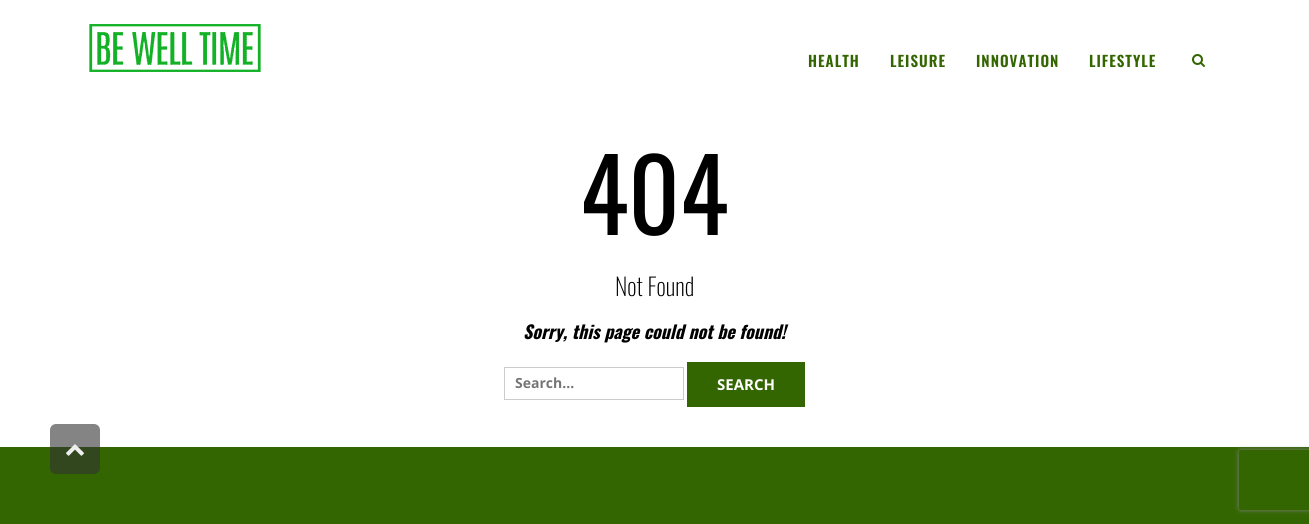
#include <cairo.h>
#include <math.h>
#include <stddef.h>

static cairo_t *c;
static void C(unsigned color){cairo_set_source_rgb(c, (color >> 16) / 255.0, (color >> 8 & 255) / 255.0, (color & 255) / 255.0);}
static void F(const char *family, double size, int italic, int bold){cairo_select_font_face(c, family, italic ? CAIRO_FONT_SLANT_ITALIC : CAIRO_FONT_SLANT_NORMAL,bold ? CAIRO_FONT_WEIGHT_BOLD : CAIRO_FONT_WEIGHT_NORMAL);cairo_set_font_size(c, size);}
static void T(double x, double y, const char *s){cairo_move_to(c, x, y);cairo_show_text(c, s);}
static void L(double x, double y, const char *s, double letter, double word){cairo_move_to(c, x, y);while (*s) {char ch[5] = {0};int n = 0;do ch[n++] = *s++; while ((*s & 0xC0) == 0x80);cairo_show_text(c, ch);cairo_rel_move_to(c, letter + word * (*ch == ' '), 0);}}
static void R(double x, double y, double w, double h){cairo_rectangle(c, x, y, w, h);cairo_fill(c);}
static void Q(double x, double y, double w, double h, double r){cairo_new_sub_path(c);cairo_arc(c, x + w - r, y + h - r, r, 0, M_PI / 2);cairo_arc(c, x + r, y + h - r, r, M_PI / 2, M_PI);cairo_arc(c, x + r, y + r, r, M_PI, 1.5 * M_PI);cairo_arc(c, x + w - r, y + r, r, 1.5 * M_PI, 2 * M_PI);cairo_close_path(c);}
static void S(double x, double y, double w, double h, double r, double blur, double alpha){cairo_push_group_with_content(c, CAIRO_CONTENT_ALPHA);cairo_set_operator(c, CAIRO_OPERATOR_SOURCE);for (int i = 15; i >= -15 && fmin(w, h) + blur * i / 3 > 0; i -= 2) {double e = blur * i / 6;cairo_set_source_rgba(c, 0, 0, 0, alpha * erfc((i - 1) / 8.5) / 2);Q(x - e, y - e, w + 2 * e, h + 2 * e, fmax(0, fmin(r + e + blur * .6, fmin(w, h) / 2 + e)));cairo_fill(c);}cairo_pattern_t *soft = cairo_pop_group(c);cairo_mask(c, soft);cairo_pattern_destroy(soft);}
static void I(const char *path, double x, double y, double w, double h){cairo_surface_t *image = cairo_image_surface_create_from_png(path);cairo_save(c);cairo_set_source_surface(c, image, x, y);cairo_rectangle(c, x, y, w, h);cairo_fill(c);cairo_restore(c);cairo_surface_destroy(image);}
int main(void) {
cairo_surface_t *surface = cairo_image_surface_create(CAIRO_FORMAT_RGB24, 1309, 524);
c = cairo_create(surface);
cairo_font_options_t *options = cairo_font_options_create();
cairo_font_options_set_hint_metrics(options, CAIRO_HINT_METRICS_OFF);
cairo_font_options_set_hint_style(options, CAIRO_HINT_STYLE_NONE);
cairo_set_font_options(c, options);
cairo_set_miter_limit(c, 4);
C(0xffffff);
cairo_paint(c);
I("1.png",89,24,172,48);
F("Oswald SemiBold",15,0,0);
C(0x336600);
L(808,67,"HEALTH",1,0);
L(890,67,"LEISURE",1,0);
L(976,67,"INNOVATION",1,0);
L(1089,67,"LIFESTYLE",1,0);
I("2.png",1192,54,13,13);
F("Oswald",100,0,0);
C(0x000000);
T(580,235,"404");
F("Oswald ExtraLight",24,0,0);
T(615,296,"Not Found");
F("Oswald",18,1,1);
T(523,339,"Sorry, this page could not be found!");
cairo_rectangle(c,504.5,367.5,179,32);
C(0xcccccc);
cairo_set_line_width(c,1);
cairo_stroke(c);
F("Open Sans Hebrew",14,0,1);
C(0x757575);
T(515,388,"Search...");
C(0x336600);
R(687,362,118,45);
F("Open Sans Hebrew",15,0,1);
C(0xffffff);
T(717,390,"SEARCH");
C(0x336600);
R(0,447,1309,77);
cairo_set_source_rgba(c,0.2,0.2,0.2,0.6);
Q(50,424,50,50,6);
cairo_fill(c);
I("3.png",66,444,18,12);
cairo_save(c);
cairo_set_fill_rule(c,CAIRO_FILL_RULE_EVEN_ODD);
cairo_new_path(c);
cairo_move_to(c,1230,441);
cairo_line_to(c,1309,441);
cairo_line_to(c,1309,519);
cairo_line_to(c,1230,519);
cairo_close_path(c);
cairo_move_to(c,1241,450);
cairo_line_to(c,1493,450);
cairo_curve_to(c,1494,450,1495,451,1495,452);
cairo_line_to(c,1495,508);
cairo_curve_to(c,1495,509,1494,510,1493,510);
cairo_line_to(c,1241,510);
cairo_curve_to(c,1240,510,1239,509,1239,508);
cairo_line_to(c,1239,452);
cairo_curve_to(c,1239,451,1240,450,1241,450);
cairo_close_path(c);
cairo_clip(c);
C(0x808080);
S(1239,450,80,60,2,2.5,1);
cairo_restore(c);
cairo_surface_write_to_png(surface, "o.png");
cairo_font_options_destroy(options);
cairo_destroy(c);
cairo_surface_destroy(surface);
return 0;
}
